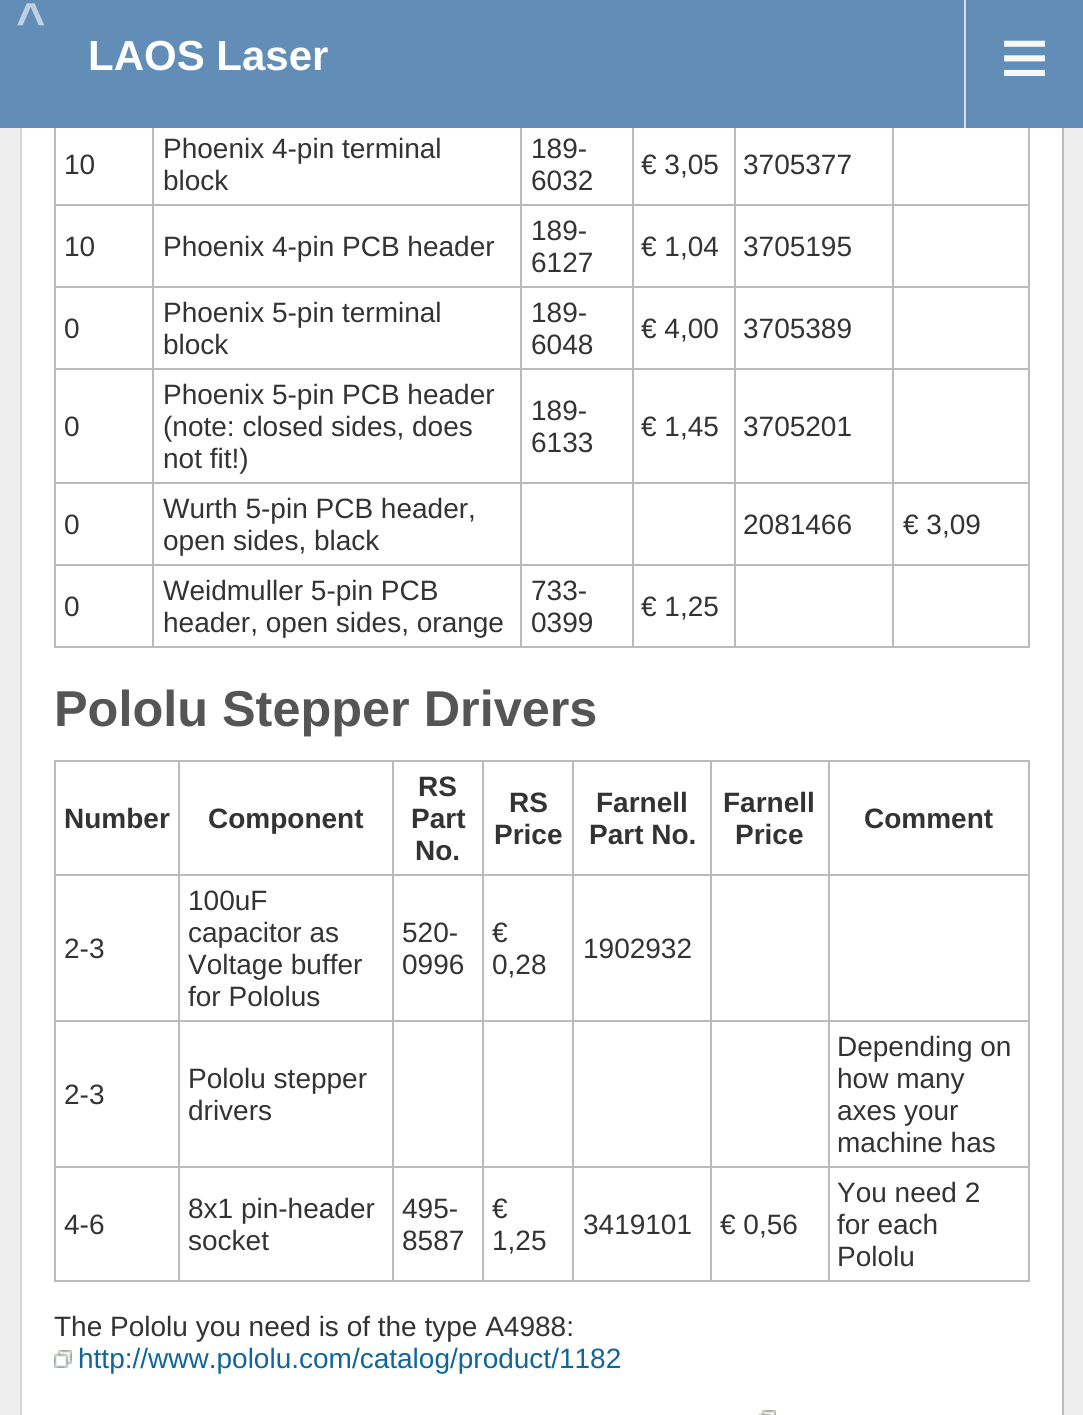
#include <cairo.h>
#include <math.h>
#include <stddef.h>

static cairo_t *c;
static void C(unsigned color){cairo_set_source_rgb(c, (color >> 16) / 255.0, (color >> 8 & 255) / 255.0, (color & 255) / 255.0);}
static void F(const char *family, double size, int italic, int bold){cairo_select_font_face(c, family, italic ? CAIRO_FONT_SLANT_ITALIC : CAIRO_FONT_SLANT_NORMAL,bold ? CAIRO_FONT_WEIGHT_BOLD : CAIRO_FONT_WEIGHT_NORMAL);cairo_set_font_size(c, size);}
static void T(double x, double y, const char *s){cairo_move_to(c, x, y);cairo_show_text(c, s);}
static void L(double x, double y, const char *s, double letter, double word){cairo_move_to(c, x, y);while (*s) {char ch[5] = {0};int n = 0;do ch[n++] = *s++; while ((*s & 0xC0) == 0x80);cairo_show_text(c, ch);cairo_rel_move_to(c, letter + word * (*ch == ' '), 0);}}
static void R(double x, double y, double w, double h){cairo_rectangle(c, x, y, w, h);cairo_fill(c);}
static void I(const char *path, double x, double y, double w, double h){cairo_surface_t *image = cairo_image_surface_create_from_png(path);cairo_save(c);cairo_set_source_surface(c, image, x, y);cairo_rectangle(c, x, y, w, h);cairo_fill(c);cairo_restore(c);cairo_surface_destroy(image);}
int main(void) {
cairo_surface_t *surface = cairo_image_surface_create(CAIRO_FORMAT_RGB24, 1083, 1415);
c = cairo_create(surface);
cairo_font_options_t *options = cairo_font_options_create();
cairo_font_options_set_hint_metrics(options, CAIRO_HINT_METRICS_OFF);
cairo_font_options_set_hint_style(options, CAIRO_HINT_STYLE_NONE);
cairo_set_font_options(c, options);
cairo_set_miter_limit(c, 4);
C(0xeeeeee);
cairo_paint(c);
C(0xffffff);
R(22,128,1040,1287);
C(0xbbbbbb);
R(1028,128,2,520);
R(54,646,976,2);
R(54,128,2,520);
R(892,204,138,2);
R(892,286,138,2);
R(892,368,138,2);
R(892,482,138,2);
R(892,564,138,2);
R(892,564,2,84);
R(734,564,160,2);
R(892,482,2,84);
R(734,482,160,2);
R(892,368,2,116);
R(734,368,160,2);
R(892,286,2,84);
R(734,286,160,2);
R(892,204,2,84);
R(734,204,160,2);
R(734,564,2,84);
R(632,564,104,2);
R(734,482,2,84);
R(632,482,104,2);
R(734,368,2,116);
R(632,368,104,2);
R(734,286,2,84);
R(632,286,104,2);
R(734,204,2,84);
R(632,204,104,2);
R(632,564,2,84);
R(520,564,114,2);
R(632,482,2,84);
R(520,482,114,2);
R(632,368,2,116);
R(520,368,114,2);
R(632,286,2,84);
R(520,286,114,2);
R(632,204,2,84);
R(520,204,114,2);
R(520,564,2,84);
R(152,564,370,2);
R(520,482,2,84);
R(152,482,370,2);
R(520,368,2,116);
R(152,368,370,2);
R(520,286,2,84);
R(152,286,370,2);
R(520,204,2,84);
R(152,204,370,2);
R(152,564,2,84);
R(54,564,100,2);
R(152,482,2,84);
R(54,482,100,2);
R(152,368,2,116);
R(54,368,100,2);
R(152,286,2,84);
R(54,286,100,2);
R(152,204,2,84);
R(54,204,100,2);
R(152,122,2,84);
R(520,122,2,84);
R(632,122,2,84);
R(734,122,2,84);
R(892,122,2,84);
C(0x628db6);
R(0,0,1083,128);
F("Liberation Sans",50.4,0,1);
C(0xc0d1e2);
L(16,38,"^",7,0);
F("Liberation Sans",42,0,1);
C(0xffffff);
T(88,70,"LAOS Laser");
C(0xdddddd);
R(964,0,2,128);
F("Liberation Sans",84,0,0);
C(0xf8f8f8);
T(1000,86,"≡");
C(0xbbbbbb);
R(1062,128,2,1287);
C(0xd7d7d7);
R(20,128,2,1287);
F("Liberation Sans",28,0,0);
C(0x333333);
T(64,174,"10");
T(163,158,"Phoenix 4-pin terminal");
T(163,190,"block");
T(531,158,"189-");
T(531,190,"6032");
T(641,174,"€ 3,05");
T(743,174,"3705377");
T(64,256,"10");
T(163,256,"Phoenix 4-pin PCB header");
T(531,240,"189-");
T(531,272,"6127");
T(641,256,"€ 1,04");
T(743,256,"3705195");
T(64,338,"0");
T(163,322,"Phoenix 5-pin terminal");
T(163,354,"block");
T(531,322,"189-");
T(531,354,"6048");
T(641,338,"€ 4,00");
T(743,338,"3705389");
T(64,436,"0");
T(163,404,"Phoenix 5-pin PCB header");
T(163,436,"(note: closed sides, does");
T(163,468,"not fit!)");
T(531,420,"189-");
T(531,452,"6133");
T(641,436,"€ 1,45");
T(743,436,"3705201");
T(64,534,"0");
T(163,518,"Wurth 5-pin PCB header,");
T(163,550,"open sides, black");
T(743,534,"2081466");
T(903,534,"€ 3,09");
T(64,616,"0");
T(163,600,"Weidmuller 5-pin PCB");
T(163,632,"header, open sides, orange");
T(531,600,"733-");
T(531,632,"0399");
T(641,616,"€ 1,25");
F("Liberation Sans",50.4,0,1);
C(0x555555);
T(54,726,"Pololu Stepper Drivers");
C(0xbbbbbb);
R(54,760,976,2);
R(1028,760,2,522);
R(54,1280,976,2);
R(54,760,2,522);
F("Liberation Sans",28,0,1);
C(0x333333);
T(64,828,"Number");
C(0xbbbbbb);
R(710,874,120,2);
R(828,1020,202,2);
R(828,1166,202,2);
R(828,1166,2,116);
R(710,1166,120,2);
R(828,1020,2,148);
R(710,1020,120,2);
R(710,1166,2,116);
R(572,1166,140,2);
R(710,1020,2,148);
R(572,1020,140,2);
R(710,874,2,148);
R(572,874,140,2);
R(572,1166,2,116);
R(482,1166,92,2);
R(572,1020,2,148);
R(482,1020,92,2);
R(572,874,2,148);
R(482,874,92,2);
R(482,1166,2,116);
R(392,1166,92,2);
R(482,1020,2,148);
R(392,1020,92,2);
R(482,874,2,148);
R(392,874,92,2);
R(392,1166,2,116);
R(178,1166,216,2);
R(392,1020,2,148);
R(178,1020,216,2);
R(392,874,2,148);
R(178,874,216,2);
R(178,1166,2,116);
R(54,1166,126,2);
R(178,1020,2,148);
R(54,1020,126,2);
R(178,874,2,148);
R(54,874,126,2);
R(178,760,2,116);
C(0x333333);
T(208,828,"Component");
C(0xbbbbbb);
R(392,760,2,116);
C(0x333333);
T(418,796,"RS");
T(411,828,"Part");
T(415,860,"No.");
C(0xbbbbbb);
R(482,760,2,116);
C(0x333333);
T(509,812,"RS");
T(494,844,"Price");
C(0xbbbbbb);
R(572,760,2,116);
C(0x333333);
T(596,812,"Farnell");
T(589,844,"Part No.");
C(0xbbbbbb);
R(710,760,2,116);
C(0x333333);
T(723,812,"Farnell");
T(735,844,"Price");
C(0xbbbbbb);
R(828,874,2,148);
R(828,874,202,2);
R(828,760,2,116);
C(0x333333);
T(864,828,"Comment");
F("Liberation Sans",28,0,0);
T(64,958,"2-3");
T(188,910,"100uF");
T(188,942,"capacitor as");
T(188,974,"Voltage buffer");
T(188,1006,"for Pololus");
T(402,942,"520-");
T(402,974,"0996");
T(492,942,"€");
T(492,974,"0,28");
T(583,958,"1902932");
T(64,1104,"2-3");
T(188,1088,"Pololu stepper");
T(188,1120,"drivers");
T(837,1056,"Depending on");
T(837,1088,"how many");
T(837,1120,"axes your");
T(837,1152,"machine has");
T(64,1234,"4-6");
T(188,1218,"8x1 pin-header");
T(188,1250,"socket");
T(402,1218,"495-");
T(402,1250,"8587");
T(492,1218,"€");
T(492,1250,"1,25");
T(583,1234,"3419101");
T(720,1234,"€ 0,56");
T(837,1202,"You need 2");
T(837,1234,"for each");
T(837,1266,"Pololu");
T(54,1336,"The Pololu you need is of the type A4988:");
I("1.png",54,1350,18,18);
C(0x116699);
T(78,1368,"http://www.pololu.com/catalog/product/1182");
I("2.png",758,1410,18,5);
cairo_surface_write_to_png(surface, "o.png");
cairo_font_options_destroy(options);
cairo_destroy(c);
cairo_surface_destroy(surface);
return 0;
}
